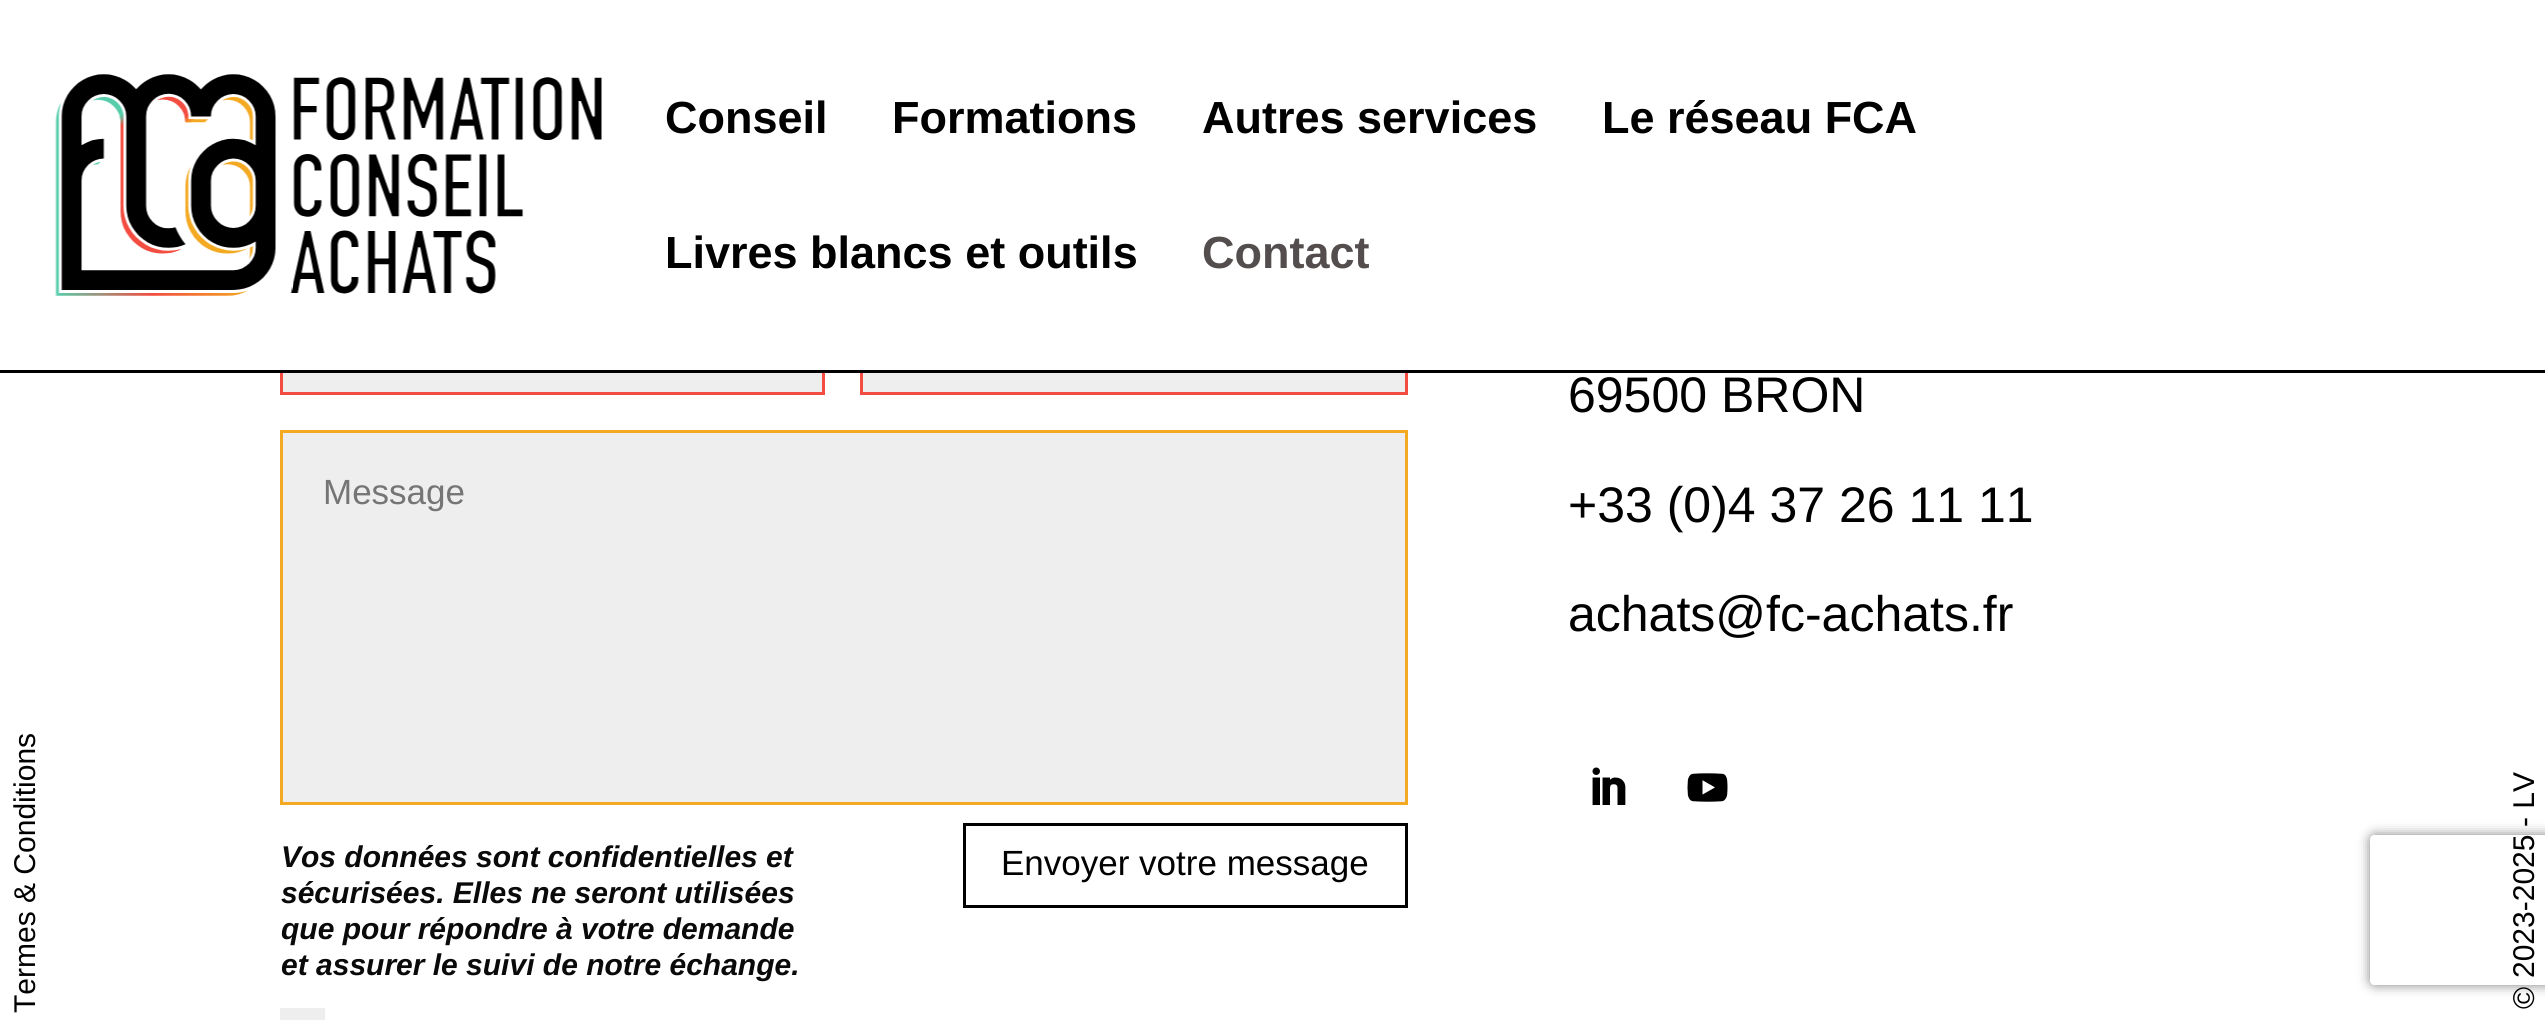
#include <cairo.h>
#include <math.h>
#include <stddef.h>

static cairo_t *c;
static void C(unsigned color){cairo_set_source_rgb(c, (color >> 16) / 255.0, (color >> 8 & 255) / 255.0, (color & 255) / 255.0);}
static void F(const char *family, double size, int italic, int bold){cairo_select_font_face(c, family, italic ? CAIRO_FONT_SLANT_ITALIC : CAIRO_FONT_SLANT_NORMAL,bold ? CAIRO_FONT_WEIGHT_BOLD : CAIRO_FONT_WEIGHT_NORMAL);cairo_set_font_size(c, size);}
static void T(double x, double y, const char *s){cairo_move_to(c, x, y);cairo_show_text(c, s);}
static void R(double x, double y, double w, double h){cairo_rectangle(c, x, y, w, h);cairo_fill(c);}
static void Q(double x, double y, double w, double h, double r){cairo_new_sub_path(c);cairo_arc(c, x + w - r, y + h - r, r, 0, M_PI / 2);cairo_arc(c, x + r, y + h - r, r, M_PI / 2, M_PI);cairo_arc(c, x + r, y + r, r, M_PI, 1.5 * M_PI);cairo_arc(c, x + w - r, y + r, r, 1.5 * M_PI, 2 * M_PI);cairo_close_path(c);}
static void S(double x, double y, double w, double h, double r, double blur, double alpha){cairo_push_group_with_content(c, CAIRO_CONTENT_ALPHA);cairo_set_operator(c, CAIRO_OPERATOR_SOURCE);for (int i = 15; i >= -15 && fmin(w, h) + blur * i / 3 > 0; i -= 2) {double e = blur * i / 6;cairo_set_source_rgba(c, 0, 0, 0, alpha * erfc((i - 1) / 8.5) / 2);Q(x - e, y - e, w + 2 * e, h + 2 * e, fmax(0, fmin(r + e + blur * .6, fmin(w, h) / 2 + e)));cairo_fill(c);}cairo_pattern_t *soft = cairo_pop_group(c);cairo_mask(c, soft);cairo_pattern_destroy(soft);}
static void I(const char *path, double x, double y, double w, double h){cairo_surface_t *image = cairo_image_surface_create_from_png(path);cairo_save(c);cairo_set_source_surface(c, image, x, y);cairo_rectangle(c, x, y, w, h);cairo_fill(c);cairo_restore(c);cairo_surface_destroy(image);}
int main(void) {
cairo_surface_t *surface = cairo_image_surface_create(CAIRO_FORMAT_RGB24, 2545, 1020);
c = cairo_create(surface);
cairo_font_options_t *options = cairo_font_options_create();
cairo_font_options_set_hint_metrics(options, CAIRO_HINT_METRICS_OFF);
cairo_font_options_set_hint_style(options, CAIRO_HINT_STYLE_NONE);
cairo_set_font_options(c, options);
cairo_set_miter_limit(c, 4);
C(0xffffff);
cairo_paint(c);
C(0xeeeeee);
R(283,373,539,19);
cairo_rectangle(c,281.5,271.5,542,122);
C(0xf34c40);
cairo_set_line_width(c,3);
cairo_stroke(c);
C(0xeeeeee);
R(863,373,542,19);
cairo_rectangle(c,861.5,271.5,545,122);
C(0xf34c40);
cairo_stroke(c);
C(0x000000);
R(0,370,2545,3);
C(0xffffff);
R(280,270,1128,100);
I("1.png",55,74,547,222);
F("Liberation Sans",45,0,1);
C(0x000000);
T(665,133,"Conseil");
T(892,133,"Formations");
T(1202,133,"Autres services");
T(1602,133,"Le réseau FCA");
T(665,268,"Livres blancs et outils");
C(0x544d4d);
T(1202,268,"Contact");
C(0xeeeeee);
cairo_rectangle(c,281.5,431.5,1125,372);
cairo_fill_preserve(c);
C(0xf4a923);
cairo_stroke(c);
F("Liberation Sans",35,0,0);
C(0x757575);
T(323,504,"Message");
F("Liberation Sans",30,1,1);
C(0x0a0a0a);
T(281,867,"Vos données sont confidentielles et");
T(281,903,"sécurisées. Elles ne seront utilisées");
T(281,939,"que pour répondre à votre demande");
T(281,975,"et assurer le suivi de notre échange.");
C(0xeeeeee);
R(280,1008,45,12);
cairo_rectangle(c,964.5,824.5,442,82);
C(0x000000);
cairo_stroke(c);
F("Liberation Sans",35,0,0);
T(1001,875,"Envoyer votre message");
F("Liberation Sans",50,0,0);
T(1568,412,"69500 BRON");
T(1568,522,"+33 (0)4 37 26 11 11");
T(1568,631,"achats@fc-achats.fr");
I("2.png",1592,767,34,38);
I("3.png",1687,773,41,29);
F("Liberation Sans",30,0,0);
cairo_save(c);
cairo_translate(c,35,1013);
cairo_rotate(c,-90 * M_PI / 180);
T(0,0,"Termes & Conditions");
cairo_restore(c);
cairo_save(c);
cairo_set_fill_rule(c,CAIRO_FILL_RULE_EVEN_ODD);
cairo_new_path(c);
cairo_move_to(c,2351,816);
cairo_line_to(c,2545,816);
cairo_line_to(c,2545,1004);
cairo_line_to(c,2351,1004);
cairo_close_path(c);
cairo_move_to(c,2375,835);
cairo_line_to(c,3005,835);
cairo_curve_to(c,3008,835,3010,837,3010,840);
cairo_line_to(c,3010,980);
cairo_curve_to(c,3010,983,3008,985,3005,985);
cairo_line_to(c,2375,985);
cairo_curve_to(c,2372,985,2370,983,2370,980);
cairo_line_to(c,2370,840);
cairo_curve_to(c,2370,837,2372,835,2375,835);
cairo_close_path(c);
cairo_clip(c);
C(0x808080);
S(2370,835,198,150,5,6,1);
cairo_restore(c);
cairo_save(c);
cairo_translate(c,2534,827);
cairo_rotate(c,-90 * M_PI / 180);
T(0,0,"- LV");
cairo_restore(c);
cairo_save(c);
cairo_translate(c,2534,978);
cairo_rotate(c,-90 * M_PI / 180);
T(0,0,"2023-2025");
cairo_restore(c);
cairo_save(c);
cairo_translate(c,2534,1009);
cairo_rotate(c,-90 * M_PI / 180);
T(0,0,"©");
cairo_restore(c);
cairo_surface_write_to_png(surface, "o.png");
cairo_font_options_destroy(options);
cairo_destroy(c);
cairo_surface_destroy(surface);
return 0;
}
